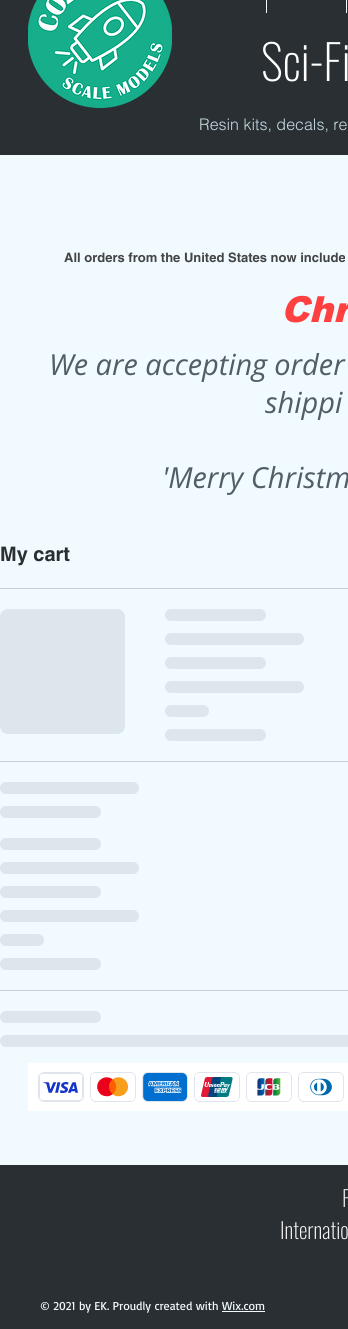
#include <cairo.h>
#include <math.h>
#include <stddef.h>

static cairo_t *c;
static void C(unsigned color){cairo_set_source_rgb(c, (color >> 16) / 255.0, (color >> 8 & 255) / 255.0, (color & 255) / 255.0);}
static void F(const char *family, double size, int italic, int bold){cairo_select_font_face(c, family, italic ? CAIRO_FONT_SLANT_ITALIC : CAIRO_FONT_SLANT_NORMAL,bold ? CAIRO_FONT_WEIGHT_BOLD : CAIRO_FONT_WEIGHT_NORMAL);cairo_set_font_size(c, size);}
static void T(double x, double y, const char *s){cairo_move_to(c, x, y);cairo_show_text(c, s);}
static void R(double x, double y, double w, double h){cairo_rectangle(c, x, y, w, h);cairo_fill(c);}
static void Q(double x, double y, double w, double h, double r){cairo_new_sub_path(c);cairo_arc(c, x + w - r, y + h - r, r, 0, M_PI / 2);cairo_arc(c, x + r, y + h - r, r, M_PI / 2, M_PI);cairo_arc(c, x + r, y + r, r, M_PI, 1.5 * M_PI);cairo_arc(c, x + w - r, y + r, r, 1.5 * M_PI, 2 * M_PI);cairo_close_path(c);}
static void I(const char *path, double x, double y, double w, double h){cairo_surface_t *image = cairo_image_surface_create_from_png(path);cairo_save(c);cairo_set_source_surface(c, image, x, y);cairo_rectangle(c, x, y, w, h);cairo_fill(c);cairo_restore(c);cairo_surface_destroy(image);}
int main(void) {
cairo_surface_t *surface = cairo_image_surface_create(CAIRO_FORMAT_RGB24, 348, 1329);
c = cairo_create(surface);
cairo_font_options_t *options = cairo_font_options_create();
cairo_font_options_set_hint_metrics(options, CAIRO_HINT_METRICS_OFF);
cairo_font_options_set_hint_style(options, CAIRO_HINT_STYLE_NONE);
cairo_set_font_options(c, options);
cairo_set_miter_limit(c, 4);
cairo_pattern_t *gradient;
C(0xf0faff);
cairo_paint(c);
C(0x292f33);
R(0,0,348,155);
I("1.png",28,0,144,108);
C(0xf0faff);
R(266,0,1,13);
R(346,0,1,13);
F("Oswald ExtraLight",48,0,0);
C(0xffffff);
T(261,81,"Sci-Fi");
F("helvetica Light",16,0,0);
C(0xcadde6);
T(199,130,"Resin kits, decals, re");
F("helvetica",13,0,1);
C(0x444444);
T(64,262,"All orders from the United States now include");
F("arial Black",36,1,0);
C(0xff4040);
T(281,322,"Chr");
F("Open Sans",29,1,0);
C(0x515e65);
T(49,375,"We are accepting order");
T(265,413,"shippi");
T(162,488,"'Merry Christm");
C(0xc8d1d6);
R(0,588,348,1);
F("helvetica",20,0,1);
C(0x292f33);
T(0,561,"My cart");
gradient = cairo_pattern_create_linear(0,672,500,672);
cairo_pattern_add_color_stop_rgba(gradient,.25,0.863,0.902,0.922,1);
cairo_pattern_add_color_stop_rgba(gradient,.37,0.784,0.82,0.839,1);
cairo_pattern_add_color_stop_rgba(gradient,.63,0.863,0.902,0.922,1);
cairo_set_source(c,gradient);
cairo_pattern_destroy(gradient);
Q(0,609,125,125,8);
cairo_fill(c);
gradient = cairo_pattern_create_linear(165,615,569,615);
cairo_pattern_add_color_stop_rgba(gradient,.25,0.863,0.902,0.922,1);
cairo_pattern_add_color_stop_rgba(gradient,.37,0.784,0.82,0.839,1);
cairo_pattern_add_color_stop_rgba(gradient,.63,0.863,0.902,0.922,1);
cairo_set_source(c,gradient);
cairo_pattern_destroy(gradient);
Q(165,609,101,12,6);
cairo_fill(c);
gradient = cairo_pattern_create_linear(165,639,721,639);
cairo_pattern_add_color_stop_rgba(gradient,.25,0.863,0.902,0.922,1);
cairo_pattern_add_color_stop_rgba(gradient,.37,0.784,0.82,0.839,1);
cairo_pattern_add_color_stop_rgba(gradient,.63,0.863,0.902,0.922,1);
cairo_set_source(c,gradient);
cairo_pattern_destroy(gradient);
Q(165,633,139,12,6);
cairo_fill(c);
gradient = cairo_pattern_create_linear(165,663,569,663);
cairo_pattern_add_color_stop_rgba(gradient,.25,0.863,0.902,0.922,1);
cairo_pattern_add_color_stop_rgba(gradient,.37,0.784,0.82,0.839,1);
cairo_pattern_add_color_stop_rgba(gradient,.63,0.863,0.902,0.922,1);
cairo_set_source(c,gradient);
cairo_pattern_destroy(gradient);
Q(165,657,101,12,6);
cairo_fill(c);
gradient = cairo_pattern_create_linear(165,687,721,687);
cairo_pattern_add_color_stop_rgba(gradient,.25,0.863,0.902,0.922,1);
cairo_pattern_add_color_stop_rgba(gradient,.37,0.784,0.82,0.839,1);
cairo_pattern_add_color_stop_rgba(gradient,.63,0.863,0.902,0.922,1);
cairo_set_source(c,gradient);
cairo_pattern_destroy(gradient);
Q(165,681,139,12,6);
cairo_fill(c);
gradient = cairo_pattern_create_linear(165,711,341,711);
cairo_pattern_add_color_stop_rgba(gradient,.25,0.863,0.902,0.922,1);
cairo_pattern_add_color_stop_rgba(gradient,.37,0.784,0.82,0.839,1);
cairo_pattern_add_color_stop_rgba(gradient,.63,0.863,0.902,0.922,1);
cairo_set_source(c,gradient);
cairo_pattern_destroy(gradient);
Q(165,705,44,12,6);
cairo_fill(c);
gradient = cairo_pattern_create_linear(165,735,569,735);
cairo_pattern_add_color_stop_rgba(gradient,.25,0.863,0.902,0.922,1);
cairo_pattern_add_color_stop_rgba(gradient,.37,0.784,0.82,0.839,1);
cairo_pattern_add_color_stop_rgba(gradient,.63,0.863,0.902,0.922,1);
cairo_set_source(c,gradient);
cairo_pattern_destroy(gradient);
Q(165,729,101,12,6);
cairo_fill(c);
C(0xc8d1d6);
R(0,761,348,1);
gradient = cairo_pattern_create_linear(0,788,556,788);
cairo_pattern_add_color_stop_rgba(gradient,.25,0.863,0.902,0.922,1);
cairo_pattern_add_color_stop_rgba(gradient,.37,0.784,0.82,0.839,1);
cairo_pattern_add_color_stop_rgba(gradient,.63,0.863,0.902,0.922,1);
cairo_set_source(c,gradient);
cairo_pattern_destroy(gradient);
Q(0,782,139,12,6);
cairo_fill(c);
gradient = cairo_pattern_create_linear(0,812,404,812);
cairo_pattern_add_color_stop_rgba(gradient,.25,0.863,0.902,0.922,1);
cairo_pattern_add_color_stop_rgba(gradient,.37,0.784,0.82,0.839,1);
cairo_pattern_add_color_stop_rgba(gradient,.63,0.863,0.902,0.922,1);
cairo_set_source(c,gradient);
cairo_pattern_destroy(gradient);
Q(0,806,101,12,6);
cairo_fill(c);
gradient = cairo_pattern_create_linear(0,844,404,844);
cairo_pattern_add_color_stop_rgba(gradient,.25,0.863,0.902,0.922,1);
cairo_pattern_add_color_stop_rgba(gradient,.37,0.784,0.82,0.839,1);
cairo_pattern_add_color_stop_rgba(gradient,.63,0.863,0.902,0.922,1);
cairo_set_source(c,gradient);
cairo_pattern_destroy(gradient);
Q(0,838,101,12,6);
cairo_fill(c);
gradient = cairo_pattern_create_linear(0,868,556,868);
cairo_pattern_add_color_stop_rgba(gradient,.25,0.863,0.902,0.922,1);
cairo_pattern_add_color_stop_rgba(gradient,.37,0.784,0.82,0.839,1);
cairo_pattern_add_color_stop_rgba(gradient,.63,0.863,0.902,0.922,1);
cairo_set_source(c,gradient);
cairo_pattern_destroy(gradient);
Q(0,862,139,12,6);
cairo_fill(c);
gradient = cairo_pattern_create_linear(0,892,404,892);
cairo_pattern_add_color_stop_rgba(gradient,.25,0.863,0.902,0.922,1);
cairo_pattern_add_color_stop_rgba(gradient,.37,0.784,0.82,0.839,1);
cairo_pattern_add_color_stop_rgba(gradient,.63,0.863,0.902,0.922,1);
cairo_set_source(c,gradient);
cairo_pattern_destroy(gradient);
Q(0,886,101,12,6);
cairo_fill(c);
gradient = cairo_pattern_create_linear(0,916,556,916);
cairo_pattern_add_color_stop_rgba(gradient,.25,0.863,0.902,0.922,1);
cairo_pattern_add_color_stop_rgba(gradient,.37,0.784,0.82,0.839,1);
cairo_pattern_add_color_stop_rgba(gradient,.63,0.863,0.902,0.922,1);
cairo_set_source(c,gradient);
cairo_pattern_destroy(gradient);
Q(0,910,139,12,6);
cairo_fill(c);
gradient = cairo_pattern_create_linear(0,940,176,940);
cairo_pattern_add_color_stop_rgba(gradient,.25,0.863,0.902,0.922,1);
cairo_pattern_add_color_stop_rgba(gradient,.37,0.784,0.82,0.839,1);
cairo_pattern_add_color_stop_rgba(gradient,.63,0.863,0.902,0.922,1);
cairo_set_source(c,gradient);
cairo_pattern_destroy(gradient);
Q(0,934,44,12,6);
cairo_fill(c);
gradient = cairo_pattern_create_linear(0,964,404,964);
cairo_pattern_add_color_stop_rgba(gradient,.25,0.863,0.902,0.922,1);
cairo_pattern_add_color_stop_rgba(gradient,.37,0.784,0.82,0.839,1);
cairo_pattern_add_color_stop_rgba(gradient,.63,0.863,0.902,0.922,1);
cairo_set_source(c,gradient);
cairo_pattern_destroy(gradient);
Q(0,958,101,12,6);
cairo_fill(c);
C(0xc8d1d6);
R(0,990,348,1);
gradient = cairo_pattern_create_linear(0,1017,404,1017);
cairo_pattern_add_color_stop_rgba(gradient,.25,0.863,0.902,0.922,1);
cairo_pattern_add_color_stop_rgba(gradient,.37,0.784,0.82,0.839,1);
cairo_pattern_add_color_stop_rgba(gradient,.63,0.863,0.902,0.922,1);
cairo_set_source(c,gradient);
cairo_pattern_destroy(gradient);
Q(0,1011,101,12,6);
cairo_fill(c);
gradient = cairo_pattern_create_linear(0,1041,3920,1041);
cairo_pattern_add_color_stop_rgba(gradient,.25,0.863,0.902,0.922,1);
cairo_pattern_add_color_stop_rgba(gradient,.37,0.784,0.82,0.839,1);
cairo_pattern_add_color_stop_rgba(gradient,.63,0.863,0.902,0.922,1);
cairo_set_source(c,gradient);
cairo_pattern_destroy(gradient);
Q(0,1035,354,12,6);
cairo_fill(c);
I("2.png",28,1063,320,48);
C(0x292f33);
R(0,1165,348,164);
F("Oswald ExtraLight",22,0,0);
C(0xffffff);
T(342,1207,"F");
T(280,1239,"Internatio");
F("Basic",12,0,0);
C(0xf0faff);
T(40,1310,"© 2021 by EK. Proudly created with Wix.com");
R(222,1311,43,1);
cairo_surface_write_to_png(surface, "o.png");
cairo_font_options_destroy(options);
cairo_destroy(c);
cairo_surface_destroy(surface);
return 0;
}
